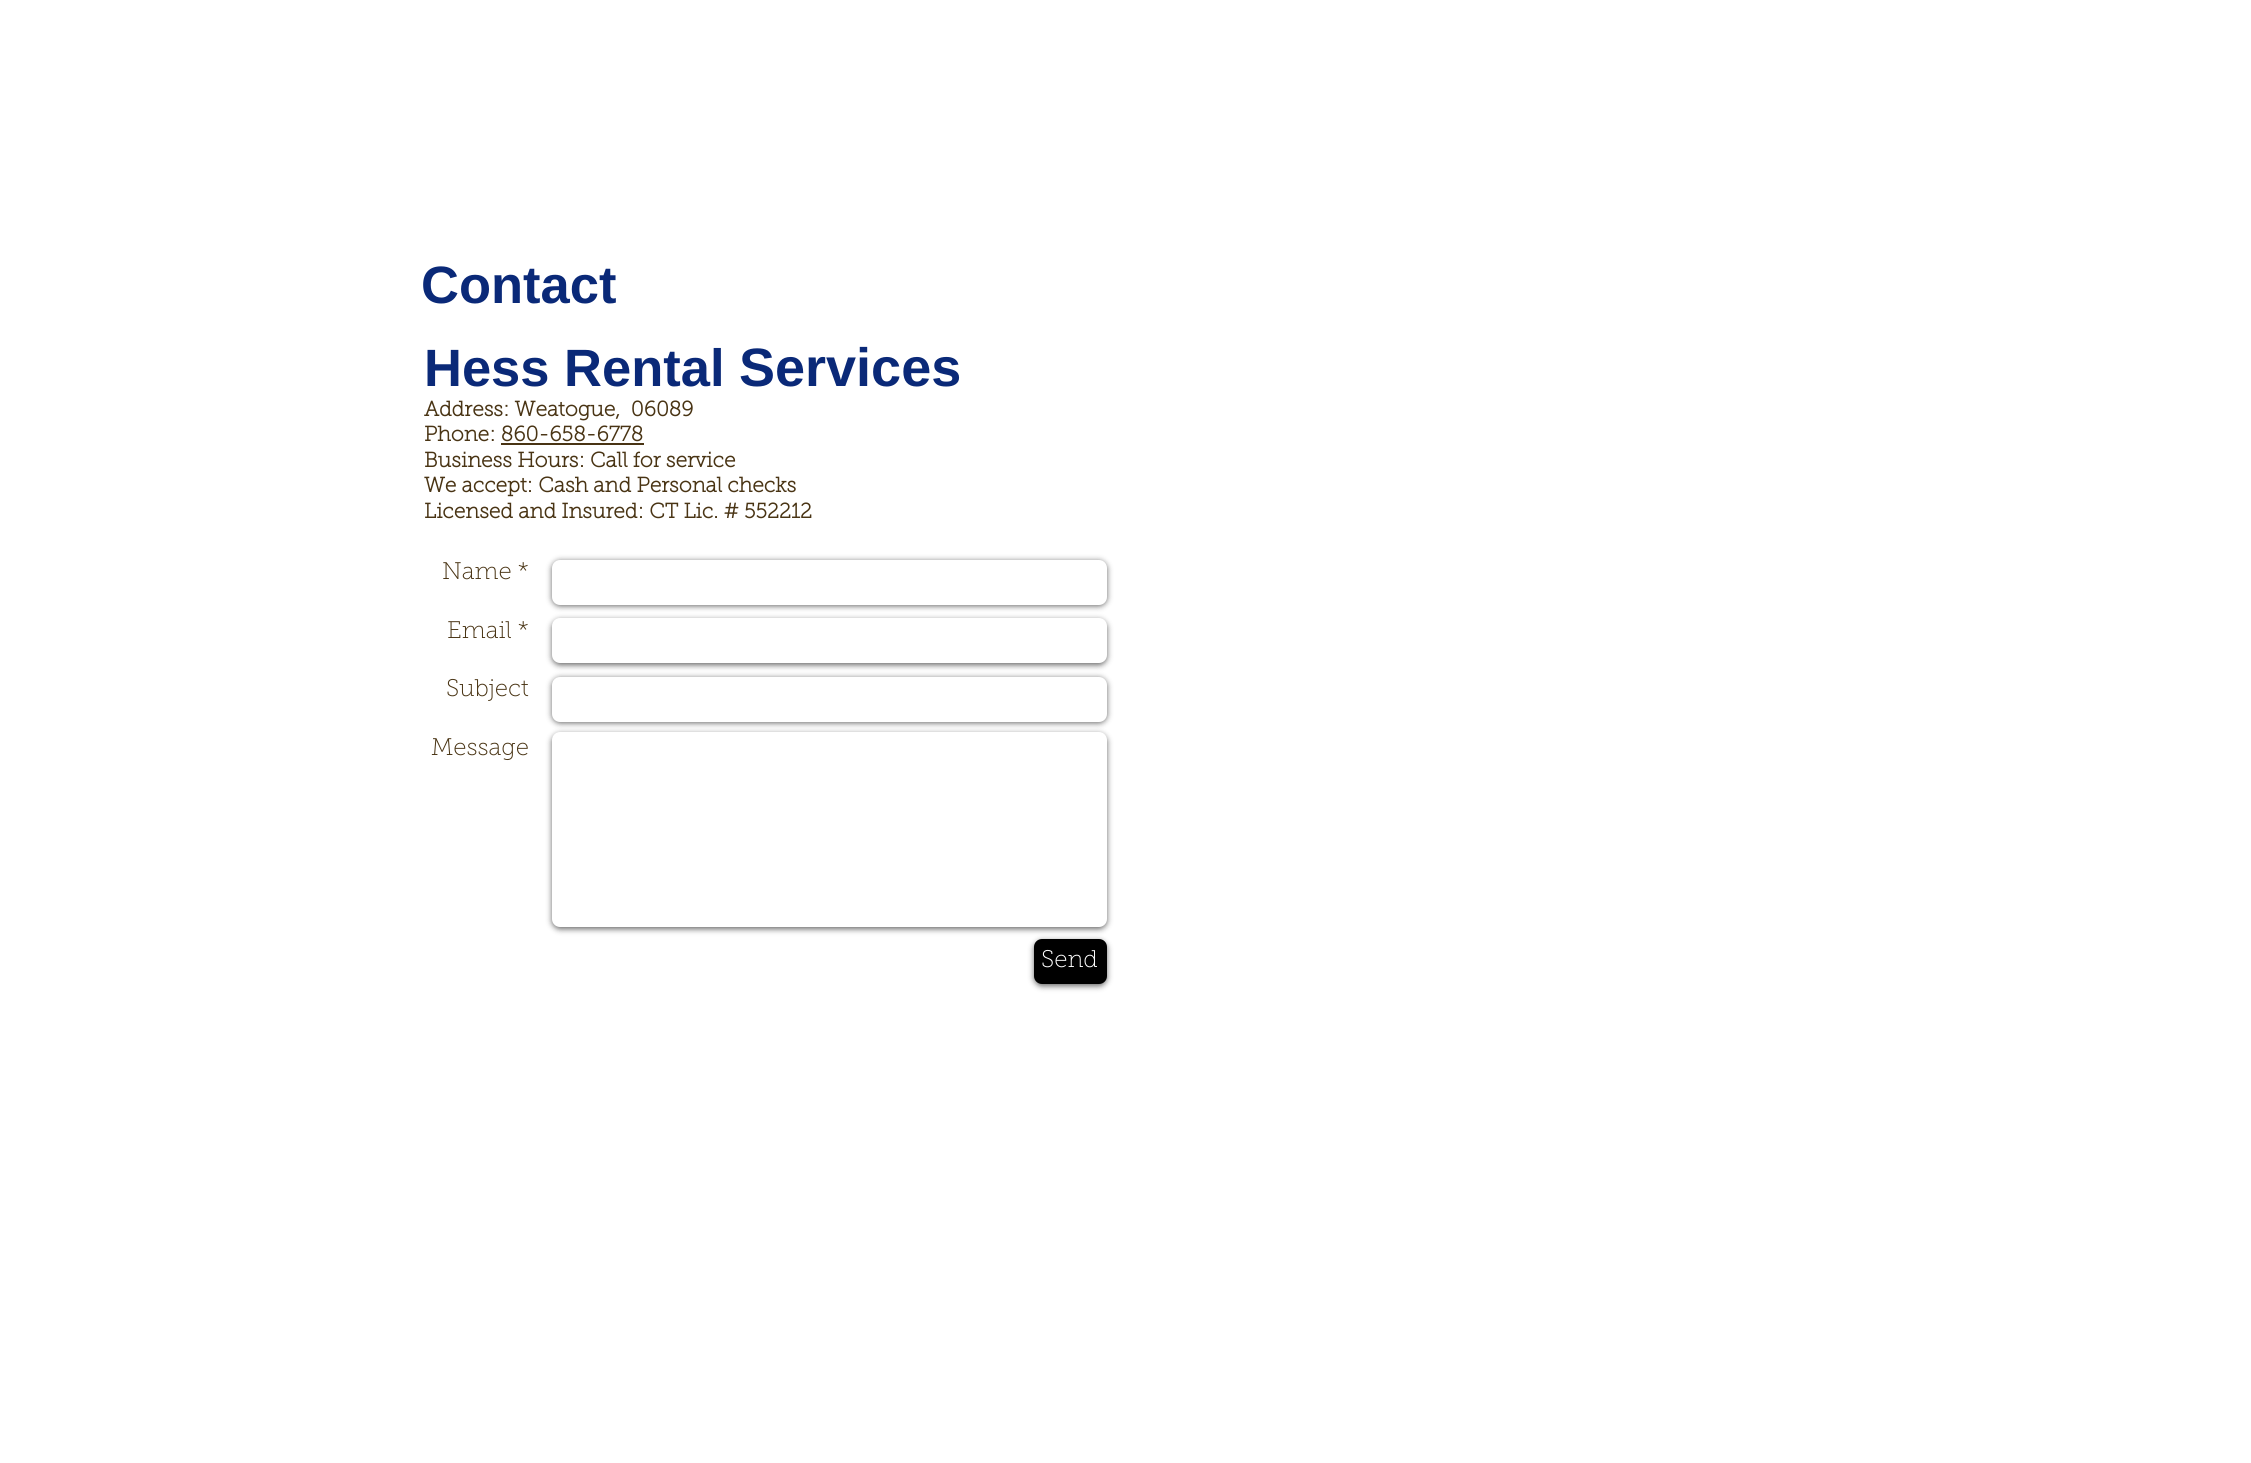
#include <cairo.h>
#include <math.h>
#include <stddef.h>

static cairo_t *c;
static void C(unsigned color){cairo_set_source_rgb(c, (color >> 16) / 255.0, (color >> 8 & 255) / 255.0, (color & 255) / 255.0);}
static void F(const char *family, double size, int italic, int bold){cairo_select_font_face(c, family, italic ? CAIRO_FONT_SLANT_ITALIC : CAIRO_FONT_SLANT_NORMAL,bold ? CAIRO_FONT_WEIGHT_BOLD : CAIRO_FONT_WEIGHT_NORMAL);cairo_set_font_size(c, size);}
static void T(double x, double y, const char *s){cairo_move_to(c, x, y);cairo_show_text(c, s);}
static void R(double x, double y, double w, double h){cairo_rectangle(c, x, y, w, h);cairo_fill(c);}
static void Q(double x, double y, double w, double h, double r){cairo_new_sub_path(c);cairo_arc(c, x + w - r, y + h - r, r, 0, M_PI / 2);cairo_arc(c, x + r, y + h - r, r, M_PI / 2, M_PI);cairo_arc(c, x + r, y + r, r, M_PI, 1.5 * M_PI);cairo_arc(c, x + w - r, y + r, r, 1.5 * M_PI, 2 * M_PI);cairo_close_path(c);}
static void S(double x, double y, double w, double h, double r, double blur, double alpha){cairo_push_group_with_content(c, CAIRO_CONTENT_ALPHA);cairo_set_operator(c, CAIRO_OPERATOR_SOURCE);for (int i = 15; i >= -15 && fmin(w, h) + blur * i / 3 > 0; i -= 2) {double e = blur * i / 6;cairo_set_source_rgba(c, 0, 0, 0, alpha * erfc((i - 1) / 8.5) / 2);Q(x - e, y - e, w + 2 * e, h + 2 * e, fmax(0, fmin(r + e + blur * .6, fmin(w, h) / 2 + e)));cairo_fill(c);}cairo_pattern_t *soft = cairo_pop_group(c);cairo_mask(c, soft);cairo_pattern_destroy(soft);}
int main(void) {
cairo_surface_t *surface = cairo_image_surface_create(CAIRO_FORMAT_RGB24, 2251, 1463);
c = cairo_create(surface);
cairo_font_options_t *options = cairo_font_options_create();
cairo_font_options_set_hint_metrics(options, CAIRO_HINT_METRICS_OFF);
cairo_font_options_set_hint_style(options, CAIRO_HINT_STYLE_NONE);
cairo_set_font_options(c, options);
cairo_set_miter_limit(c, 4);
C(0xffffff);
cairo_paint(c);
F("Liberation Sans",52.5,0,1);
C(0x0a2978);
T(421,303,"Contact");
T(424,386,"Hess Rental");
F("Liberation Sans",54,0,1);
T(739,386,"Services");
F("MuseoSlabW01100",21,0,1);
C(0x493414);
T(424,416,"Address: Weatogue,  06089");
T(424,441,"Phone: 860-658-6778");
R(501,443,143,2);
T(424,467,"Business Hours: Call for service");
T(424,492,"We accept: Cash and Personal checks");
T(424,518,"Licensed and Insured: CT Lic. # 552212");
F("MuseoSlabW01100 Thin",24,0,0);
T(442,579,"Name *");
C(0x000000);
S(552,561,555,45,8,3,.6);
C(0xffffff);
Q(552,560,555,45,8);
cairo_fill(c);
C(0x493414);
T(447,638,"Email *");
C(0x000000);
S(552,620,555,45,8,3,.6);
C(0xffffff);
Q(552,618,555,45,8);
cairo_fill(c);
C(0x493414);
T(446,696,"Subject");
C(0x000000);
S(552,678,555,45,8,3,.6);
C(0xffffff);
Q(552,677,555,45,8);
cairo_fill(c);
C(0x493414);
T(431,755,"Message");
C(0x000000);
S(552,734,555,195,8,3,.6);
C(0xffffff);
Q(552,732,555,195,8);
cairo_fill(c);
C(0x000000);
S(1034,941,73,45,8,3,.6);
C(0x000000);
Q(1034,939,73,45,8);
cairo_fill(c);
C(0xffffff);
T(1041,967,"Send");
cairo_surface_write_to_png(surface, "o.png");
cairo_font_options_destroy(options);
cairo_destroy(c);
cairo_surface_destroy(surface);
return 0;
}
